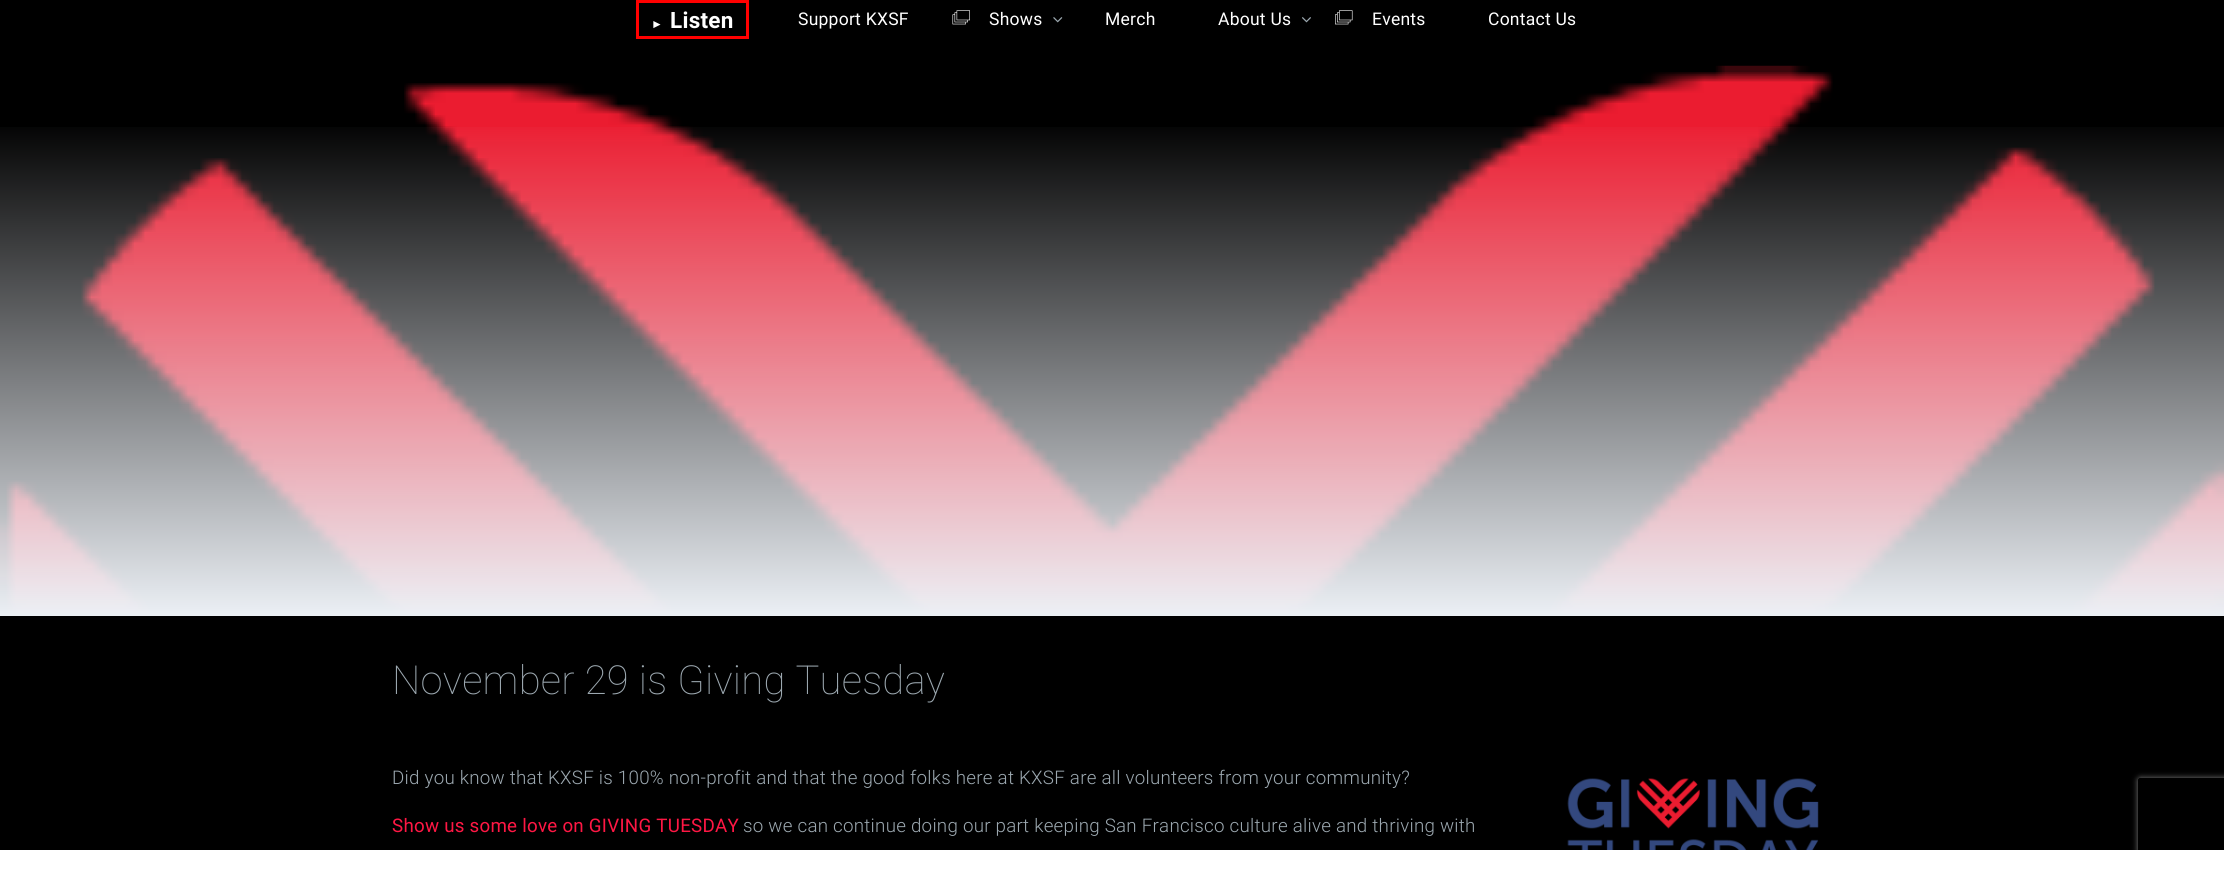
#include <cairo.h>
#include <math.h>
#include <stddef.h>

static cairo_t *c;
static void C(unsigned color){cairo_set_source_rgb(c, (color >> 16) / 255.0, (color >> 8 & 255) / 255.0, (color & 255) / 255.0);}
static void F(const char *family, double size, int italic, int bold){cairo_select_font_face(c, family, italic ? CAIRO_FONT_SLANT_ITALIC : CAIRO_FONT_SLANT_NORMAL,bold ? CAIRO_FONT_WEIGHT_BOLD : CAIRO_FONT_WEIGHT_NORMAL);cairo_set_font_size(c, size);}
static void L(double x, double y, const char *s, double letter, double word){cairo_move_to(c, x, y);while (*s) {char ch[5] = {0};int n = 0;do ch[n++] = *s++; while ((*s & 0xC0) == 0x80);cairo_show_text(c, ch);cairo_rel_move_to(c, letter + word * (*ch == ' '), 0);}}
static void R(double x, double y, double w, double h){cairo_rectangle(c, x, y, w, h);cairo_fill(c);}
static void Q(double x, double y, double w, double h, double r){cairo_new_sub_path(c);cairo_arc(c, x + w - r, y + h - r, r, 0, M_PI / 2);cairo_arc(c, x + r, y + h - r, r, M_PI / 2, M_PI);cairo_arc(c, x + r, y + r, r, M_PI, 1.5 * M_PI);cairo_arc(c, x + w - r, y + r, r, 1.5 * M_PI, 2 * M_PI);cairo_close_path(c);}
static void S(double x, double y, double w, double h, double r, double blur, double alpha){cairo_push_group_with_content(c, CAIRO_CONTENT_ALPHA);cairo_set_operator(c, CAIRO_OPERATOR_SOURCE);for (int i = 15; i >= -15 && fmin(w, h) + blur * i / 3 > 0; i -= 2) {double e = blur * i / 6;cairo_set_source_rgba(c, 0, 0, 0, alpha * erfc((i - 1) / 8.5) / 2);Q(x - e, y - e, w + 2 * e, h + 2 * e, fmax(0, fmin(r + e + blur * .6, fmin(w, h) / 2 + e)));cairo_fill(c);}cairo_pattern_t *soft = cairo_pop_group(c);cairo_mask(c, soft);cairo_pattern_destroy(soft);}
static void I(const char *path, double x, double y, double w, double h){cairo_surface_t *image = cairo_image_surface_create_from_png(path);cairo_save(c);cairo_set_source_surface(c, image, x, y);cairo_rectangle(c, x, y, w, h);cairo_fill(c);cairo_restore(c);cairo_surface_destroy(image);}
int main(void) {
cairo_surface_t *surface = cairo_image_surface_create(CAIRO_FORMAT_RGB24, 2224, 869);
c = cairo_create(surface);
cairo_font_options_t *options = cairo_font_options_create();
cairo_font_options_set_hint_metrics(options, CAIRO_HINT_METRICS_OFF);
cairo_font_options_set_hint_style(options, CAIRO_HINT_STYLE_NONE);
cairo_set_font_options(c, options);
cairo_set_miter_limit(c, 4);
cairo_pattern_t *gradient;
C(0x000000);
cairo_paint(c);
cairo_rectangle(c,637.5,1.5,110,36);
C(0xff0000);
cairo_set_line_width(c,3);
cairo_stroke(c);
F("Liberation Serif",12,0,1);
C(0xffffff);
L(651,28,"►",.25,0);
F("Roboto",22.5,0,1);
L(670,28,"Listen",.25,0);
F("Roboto",17.5,0,0);
L(798,25,"Support KXSF",.25,0);
I("1.png",952,10,18,15);
L(989,25,"Shows",.25,0);
I("2.png",1053,17,10,6);
L(1105,25,"Merch",.25,0);
L(1218,25,"About Us",.25,0);
I("3.png",1302,17,9,6);
I("4.png",1335,10,18,15);
L(1372,25,"Events",.25,0);
L(1488,25,"Contact Us",.25,0);
I("5.png",0,65,2224,548);
gradient = cairo_pattern_create_linear(1113,116,1113,616);
cairo_pattern_add_color_stop_rgba(gradient,0,0.925,0.941,0.961,0);
cairo_pattern_add_color_stop_rgba(gradient,1,0.925,0.941,0.961,1);
cairo_set_source(c,gradient);
cairo_pattern_destroy(gradient);
R(0,127,2224,489);
F("Roboto Thin",40,0,0);
C(0x9ca8b0);
L(392,694,"November 29 is Giving Tuesday",.25,0);
F("Roboto Light",18.75,0,0);
L(392,784,"Did you know that KXSF is 100% non-profit and that the good folks here at KXSF are all volunteers from your community?",.25,0);
I("6.png",1567,778,252,72);
F("Roboto",18.75,0,0);
C(0xff1744);
L(392,832,"Show us some love on GIVING TUESDAY",.25,0);
F("Roboto Light",18.75,0,0);
C(0x9ca8b0);
L(743,832,"so we can continue doing our part keeping San Francisco culture alive and thriving with",.25,0);
cairo_save(c);
cairo_set_fill_rule(c,CAIRO_FILL_RULE_EVEN_ODD);
cairo_new_path(c);
cairo_move_to(c,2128,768);
cairo_line_to(c,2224,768);
cairo_line_to(c,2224,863);
cairo_line_to(c,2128,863);
cairo_close_path(c);
cairo_move_to(c,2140.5,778);
cairo_line_to(c,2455.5,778);
cairo_curve_to(c,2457,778,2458,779,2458,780.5);
cairo_line_to(c,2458,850.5);
cairo_curve_to(c,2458,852,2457,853,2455.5,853);
cairo_line_to(c,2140.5,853);
cairo_curve_to(c,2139,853,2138,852,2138,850.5);
cairo_line_to(c,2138,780.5);
cairo_curve_to(c,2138,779,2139,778,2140.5,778);
cairo_close_path(c);
cairo_clip(c);
C(0x808080);
S(2138,778,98,75,2.5,3,1);
cairo_restore(c);
C(0xffffff);
R(0,850,2224,19);
cairo_surface_write_to_png(surface, "o.png");
cairo_font_options_destroy(options);
cairo_destroy(c);
cairo_surface_destroy(surface);
return 0;
}
